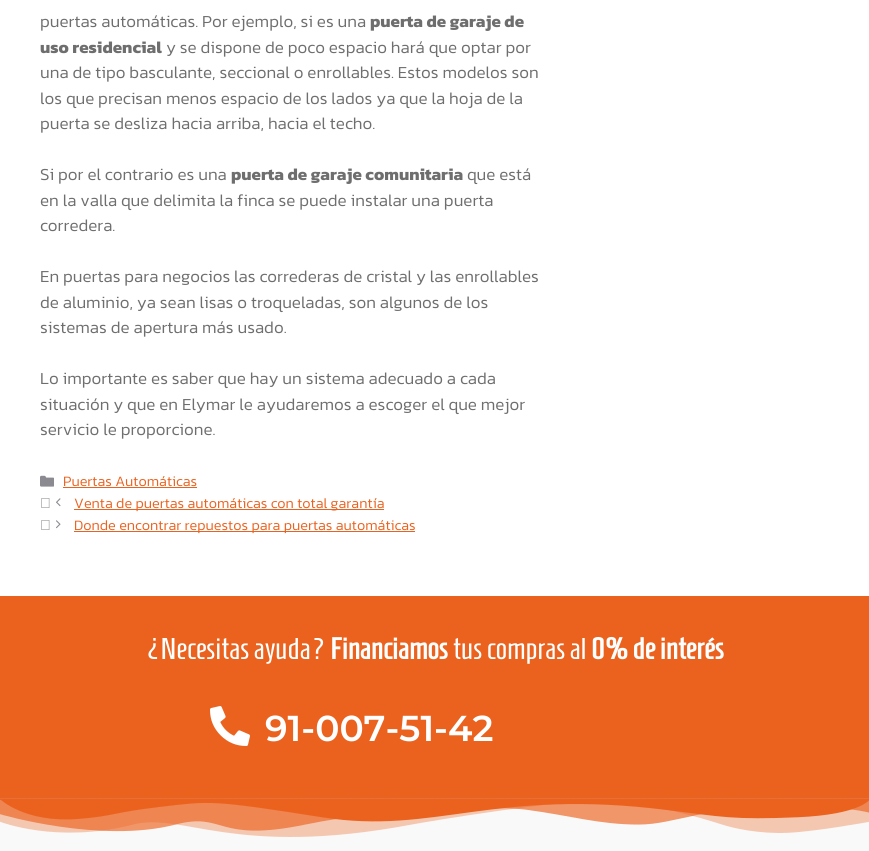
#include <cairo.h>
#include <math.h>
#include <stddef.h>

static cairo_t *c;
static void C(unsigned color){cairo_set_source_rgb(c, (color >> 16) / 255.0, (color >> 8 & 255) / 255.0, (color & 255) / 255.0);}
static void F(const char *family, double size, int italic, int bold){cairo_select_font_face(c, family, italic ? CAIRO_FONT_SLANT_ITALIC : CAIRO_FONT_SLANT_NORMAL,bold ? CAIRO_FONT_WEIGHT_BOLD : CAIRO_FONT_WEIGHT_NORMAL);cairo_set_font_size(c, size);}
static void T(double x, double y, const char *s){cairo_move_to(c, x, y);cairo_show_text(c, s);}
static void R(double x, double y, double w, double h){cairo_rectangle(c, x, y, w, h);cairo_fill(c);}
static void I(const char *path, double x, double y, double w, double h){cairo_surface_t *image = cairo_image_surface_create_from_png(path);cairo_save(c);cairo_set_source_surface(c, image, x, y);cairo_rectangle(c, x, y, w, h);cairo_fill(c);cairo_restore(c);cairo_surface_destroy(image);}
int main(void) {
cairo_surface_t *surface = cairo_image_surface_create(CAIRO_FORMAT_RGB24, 869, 851);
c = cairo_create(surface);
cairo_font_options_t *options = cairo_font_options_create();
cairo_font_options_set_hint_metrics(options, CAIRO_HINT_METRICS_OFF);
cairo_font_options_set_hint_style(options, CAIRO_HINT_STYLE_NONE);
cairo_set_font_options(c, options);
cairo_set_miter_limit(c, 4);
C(0xffffff);
cairo_paint(c);
F("Kanit Light",17,0,0);
C(0x6e6e6e);
T(40,27,"puertas automáticas. Por ejemplo, si es una");
F("Kanit",17,0,1);
T(370,27,"puerta de garaje de");
T(40,53,"uso residencial");
F("Kanit Light",17,0,0);
T(166,53,"y se dispone de poco espacio hará que optar por");
T(40,78,"una de tipo basculante, seccional o enrollables. Estos modelos son");
T(40,104,"los que precisan menos espacio de los lados ya que la hoja de la");
T(40,129,"puerta se desliza hacia arriba, hacia el techo.");
T(40,180,"Si por el contrario es una");
F("Kanit",17,0,1);
T(231,180,"puerta de garaje comunitaria");
F("Kanit Light",17,0,0);
T(467,180,"que está");
T(40,206,"en la valla que delimita la finca se puede instalar una puerta");
T(40,231,"corredera.");
T(40,282,"En puertas para negocios las correderas de cristal y las enrollables");
T(40,308,"de aluminio, ya sean lisas o troqueladas, son algunos de los");
T(40,333,"sistemas de apertura más usado.");
T(40,384,"Lo importante es saber que hay un sistema adecuado a cada");
T(40,410,"situación y que en Elymar le ayudaremos a escoger el que mejor");
T(40,435,"servicio le proporcione.");
I("1.png",40,475,14,12);
F("Kanit Light",14.45,0,0);
C(0xeb621f);
T(63,486,"Puertas Automáticas");
R(63,487,134,1);
I("2.png",41,498,9,10);
I("3.png",56,498,5,9);
R(74,509,310,1);
T(74,508,"Venta de puertas automáticas con total garantía");
I("2.png",41,520,9,10);
I("4.png",56,520,5,9);
R(74,531,341,1);
T(74,530,"Donde encontrar repuestos para puertas automáticas");
I("5.png",0,596,869,204);
F("Homenaje",30,0,0);
C(0xffffff);
T(146,659,"¿Necesitas ayuda?");
F("Homenaje",30,0,1);
T(330,659,"Financiamos");
F("Homenaje",30,0,0);
T(453,659,"tus compras al");
F("Homenaje",30,0,1);
T(591,659,"0% de interés");
I("6.png",210,706,40,40);
F("Montserrat SemiBold",36,0,0);
T(265,741,"91-007-51-42");
C(0xf9f9f9);
R(0,800,869,51);
I("7.png",0,799,869,38);
cairo_surface_write_to_png(surface, "o.png");
cairo_font_options_destroy(options);
cairo_destroy(c);
cairo_surface_destroy(surface);
return 0;
}
